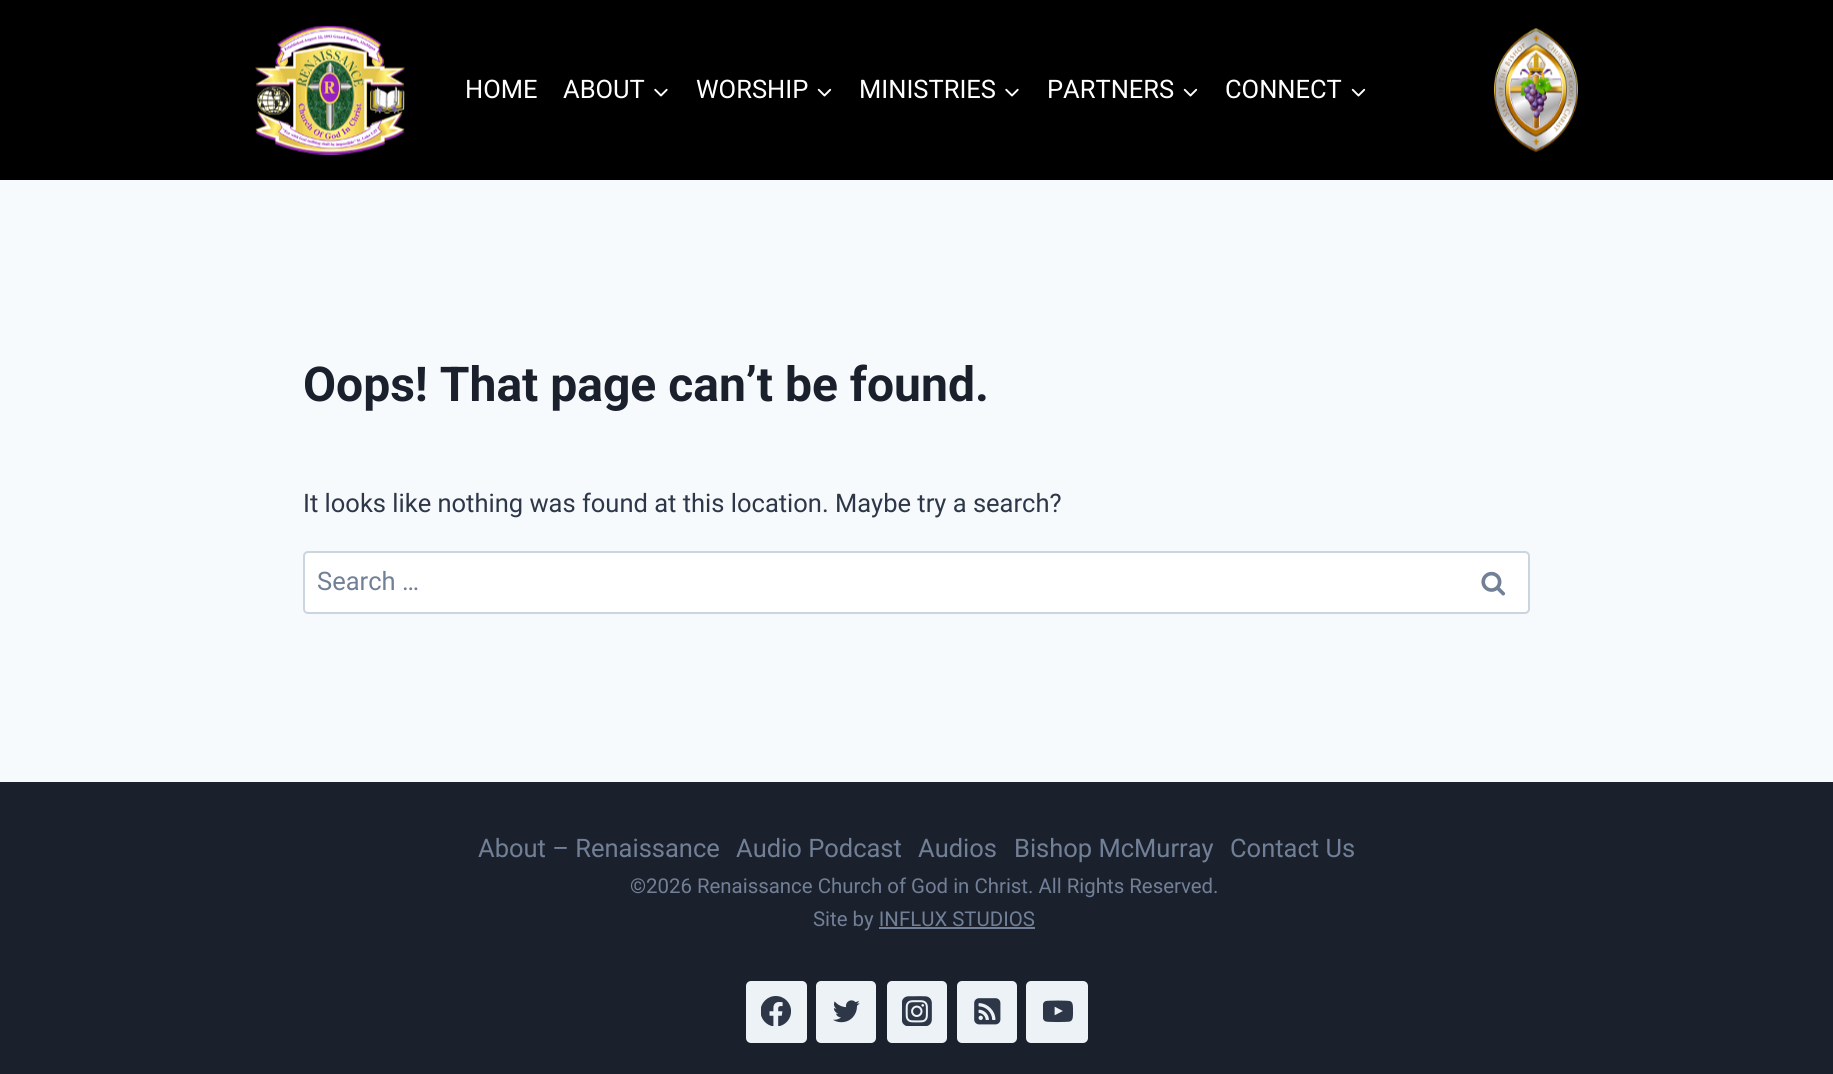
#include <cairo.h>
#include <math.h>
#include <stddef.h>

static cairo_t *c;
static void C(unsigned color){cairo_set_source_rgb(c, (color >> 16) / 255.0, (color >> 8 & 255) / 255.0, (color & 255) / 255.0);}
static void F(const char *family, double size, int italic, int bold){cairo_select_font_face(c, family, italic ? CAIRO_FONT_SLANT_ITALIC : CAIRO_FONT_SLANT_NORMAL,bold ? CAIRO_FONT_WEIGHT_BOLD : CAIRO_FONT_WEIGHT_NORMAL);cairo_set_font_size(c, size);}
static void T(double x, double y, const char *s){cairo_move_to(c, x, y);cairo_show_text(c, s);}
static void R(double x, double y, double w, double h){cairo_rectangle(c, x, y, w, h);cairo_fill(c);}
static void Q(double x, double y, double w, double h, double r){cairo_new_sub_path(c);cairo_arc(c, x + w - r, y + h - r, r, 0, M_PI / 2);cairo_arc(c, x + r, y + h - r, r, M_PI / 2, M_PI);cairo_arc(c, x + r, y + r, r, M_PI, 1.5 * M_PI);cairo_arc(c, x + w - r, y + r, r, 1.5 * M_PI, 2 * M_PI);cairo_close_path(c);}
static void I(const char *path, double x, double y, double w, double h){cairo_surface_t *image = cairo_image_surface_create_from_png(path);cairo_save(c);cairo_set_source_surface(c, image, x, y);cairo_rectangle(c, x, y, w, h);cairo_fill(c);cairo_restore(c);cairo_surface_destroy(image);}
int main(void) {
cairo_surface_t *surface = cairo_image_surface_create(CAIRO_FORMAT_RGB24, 1833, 1074);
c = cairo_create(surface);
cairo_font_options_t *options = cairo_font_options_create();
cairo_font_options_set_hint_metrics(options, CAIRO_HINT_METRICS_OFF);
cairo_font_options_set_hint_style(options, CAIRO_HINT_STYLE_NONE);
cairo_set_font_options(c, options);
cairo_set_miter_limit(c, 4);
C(0xf7fafc);
cairo_paint(c);
C(0x000000);
R(0,0,1833,180);
I("1.png",255,26,150,129);
F("Roboto",25.5,0,0);
C(0xffffff);
T(465,98,"HOME");
T(563,98,"ABOUT");
I("2.png",654,88,14,9);
T(696,98,"WORSHIP");
I("3.png",817,88,15,9);
T(859,98,"MINISTRIES");
I("2.png",1005,88,14,9);
T(1047,98,"PARTNERS");
I("3.png",1183,88,15,9);
T(1225,98,"CONNECT");
I("3.png",1351,88,15,9);
I("4.png",1494,28,84,124);
F("Roboto",48,0,1);
C(0x1a202c);
T(303,401,"Oops! That page can’t be found.");
F("Roboto",25.5,0,0);
C(0x2d3748);
T(303,512,"It looks like nothing was found at this location. Maybe try a search?");
C(0xffffff);
Q(304,552,1225,61,4);
cairo_fill_preserve(c);
C(0xcbd5e0);
cairo_stroke(c);
C(0x718096);
T(317,590,"Search …");
I("5.png",1481,571,25,25);
C(0x1a202c);
R(0,782,1833,292);
C(0x718096);
T(478,857,"About – Renaissance");
T(736,857,"Audio Podcast");
T(918,857,"Audios");
T(1014,857,"Bishop McMurray");
T(1230,857,"Contact Us");
F("Roboto",20.4,0,0);
T(630,893,"©2026 Renaissance Church of God in Christ. All Rights Reserved.");
T(813,926,"Site by INFLUX STUDIOS");
R(879,927,156,2);
C(0xedf2f7);
Q(746,981,61,62,5);
cairo_fill(c);
I("6.png",761,996,30,30);
Q(816,981,60,62,5);
cairo_fill(c);
I("7.png",833,1000,27,23);
Q(887,981,60,62,5);
cairo_fill(c);
I("8.png",902,996,30,30);
Q(957,981,60,62,5);
cairo_fill(c);
I("9.png",974,998,27,27);
Q(1026,981,62,62,5);
cairo_fill(c);
I("10.png",1043,1000,30,23);
cairo_surface_write_to_png(surface, "o.png");
cairo_font_options_destroy(options);
cairo_destroy(c);
cairo_surface_destroy(surface);
return 0;
}
